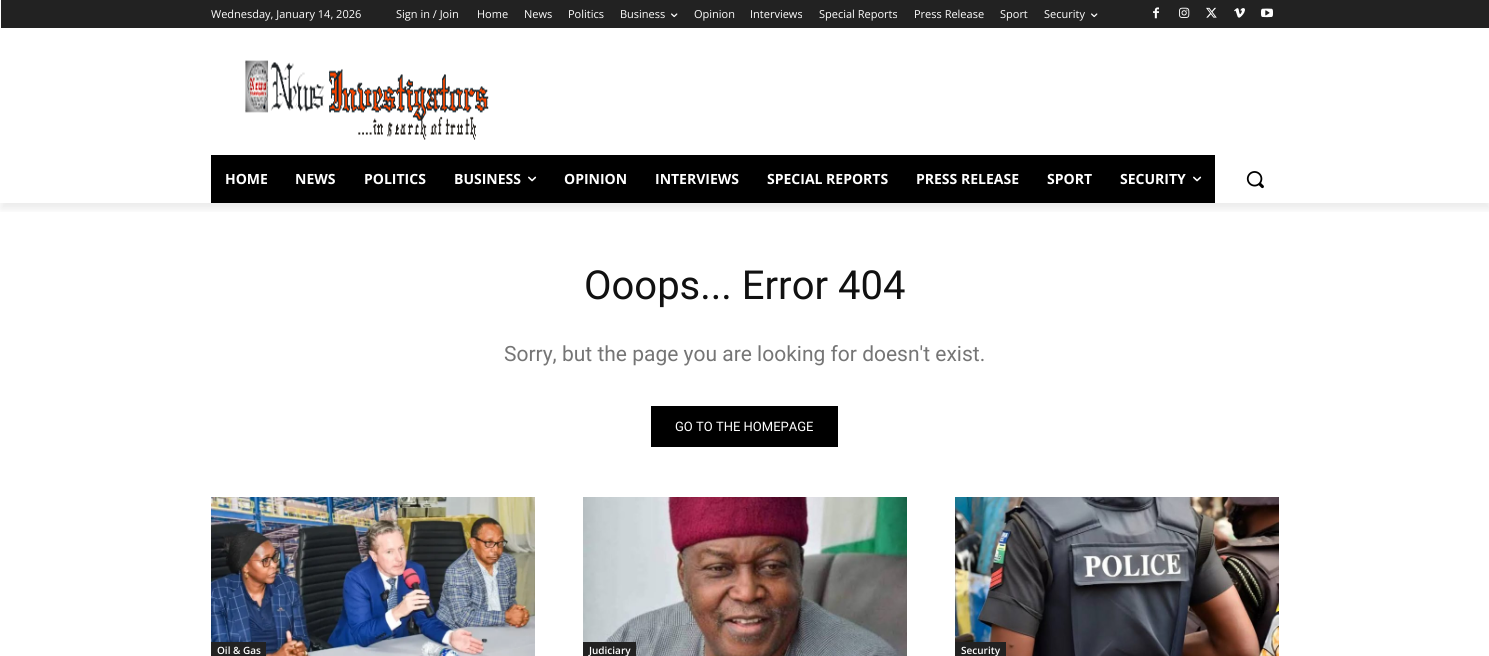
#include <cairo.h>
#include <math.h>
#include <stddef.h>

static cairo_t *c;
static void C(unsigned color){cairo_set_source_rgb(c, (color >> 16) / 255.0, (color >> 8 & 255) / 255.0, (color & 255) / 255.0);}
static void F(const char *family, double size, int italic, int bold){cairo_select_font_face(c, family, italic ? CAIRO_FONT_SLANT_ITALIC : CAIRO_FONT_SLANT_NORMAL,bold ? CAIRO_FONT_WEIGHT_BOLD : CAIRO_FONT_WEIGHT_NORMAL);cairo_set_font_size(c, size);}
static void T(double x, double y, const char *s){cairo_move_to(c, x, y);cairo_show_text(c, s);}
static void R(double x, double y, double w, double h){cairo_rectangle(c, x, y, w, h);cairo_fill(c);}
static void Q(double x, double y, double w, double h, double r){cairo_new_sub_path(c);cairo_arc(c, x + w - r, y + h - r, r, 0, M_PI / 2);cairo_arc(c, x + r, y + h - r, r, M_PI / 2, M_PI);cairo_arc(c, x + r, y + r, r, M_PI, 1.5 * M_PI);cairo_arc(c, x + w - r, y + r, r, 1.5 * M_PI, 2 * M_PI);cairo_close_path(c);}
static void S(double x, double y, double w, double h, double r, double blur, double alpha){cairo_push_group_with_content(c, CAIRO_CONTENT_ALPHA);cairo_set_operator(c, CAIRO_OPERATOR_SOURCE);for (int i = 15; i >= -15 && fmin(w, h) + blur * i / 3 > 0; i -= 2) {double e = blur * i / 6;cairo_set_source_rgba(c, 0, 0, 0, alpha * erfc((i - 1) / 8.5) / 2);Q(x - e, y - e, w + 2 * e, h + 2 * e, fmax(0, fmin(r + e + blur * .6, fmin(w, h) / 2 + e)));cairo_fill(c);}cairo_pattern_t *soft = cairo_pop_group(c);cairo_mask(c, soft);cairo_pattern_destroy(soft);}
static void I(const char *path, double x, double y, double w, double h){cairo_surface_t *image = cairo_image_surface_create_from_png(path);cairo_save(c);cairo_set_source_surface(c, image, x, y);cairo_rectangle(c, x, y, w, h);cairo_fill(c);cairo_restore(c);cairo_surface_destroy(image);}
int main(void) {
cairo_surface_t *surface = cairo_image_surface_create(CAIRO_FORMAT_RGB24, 1489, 656);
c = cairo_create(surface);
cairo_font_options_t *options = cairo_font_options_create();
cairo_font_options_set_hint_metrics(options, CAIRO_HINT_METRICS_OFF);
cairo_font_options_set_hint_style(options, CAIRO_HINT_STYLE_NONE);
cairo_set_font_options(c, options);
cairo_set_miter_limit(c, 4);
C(0xffffff);
cairo_paint(c);
C(0x222222);
R(1,0,1488,28);
I("2.png",1153,7,6,12);
I("3.png",1179,7,11,11);
I("4.png",1206,7,11,11);
I("5.png",1234,8,11,10);
I("6.png",1261,8,12,10);
I("7.png",245,60,244,80);
cairo_save(c);
cairo_rectangle(c,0,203,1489,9);
cairo_clip(c);
C(0x000000);
S(1,6,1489,203,0,4,.08);
cairo_restore(c);
F("Open Sans",11,0,0);
C(0xffffff);
T(211,18,"Wednesday, January 14, 2026");
T(396,18,"Sign in / Join");
T(477,18,"Home");
T(524,18,"News");
T(568,18,"Politics");
T(620,18,"Business");
I("1.png",671,13,7,5);
T(694,18,"Opinion");
T(750,18,"Interviews");
T(819,18,"Special Reports");
T(914,18,"Press Release");
T(1000,18,"Sport");
T(1044,18,"Security");
I("1.png",1091,13,7,5);
C(0x000000);
R(211,155,1004,48);
F("Open Sans",14,0,1);
C(0xffffff);
T(225,184,"HOME");
T(295,184,"NEWS");
T(364,184,"POLITICS");
T(454,184,"BUSINESS");
I("8.png",528,176,9,6);
T(564,184,"OPINION");
T(655,184,"INTERVIEWS");
T(767,184,"SPECIAL REPORTS");
T(916,184,"PRESS RELEASE");
T(1047,184,"SPORT");
T(1120,184,"SECURITY");
I("8.png",1193,176,9,6);
I("9.png",1246,171,18,18);
F("Roboto",40,0,0);
C(0x111111);
T(584,299,"Ooops... Error 404");
F("Roboto",21,0,0);
C(0x757575);
T(504,361,"Sorry, but the page you are looking for doesn't exist.");
C(0x000000);
R(651,406,187,41);
F("Roboto",13,0,0);
C(0xffffff);
T(675,431,"GO TO THE HOMEPAGE");
I("10.png",211,497,324,159);
C(0x222222);
R(211,642,55,14);
F("Open Sans SemiBold",10,0,0);
C(0xffffff);
T(217,654,"Oil & Gas");
I("11.png",583,497,324,159);
C(0x222222);
R(583,642,53,14);
C(0xffffff);
T(589,654,"Judiciary");
I("12.png",955,497,324,159);
C(0x222222);
R(955,642,51,14);
C(0xffffff);
T(961,654,"Security");
cairo_surface_write_to_png(surface, "o.png");
cairo_font_options_destroy(options);
cairo_destroy(c);
cairo_surface_destroy(surface);
return 0;
}
